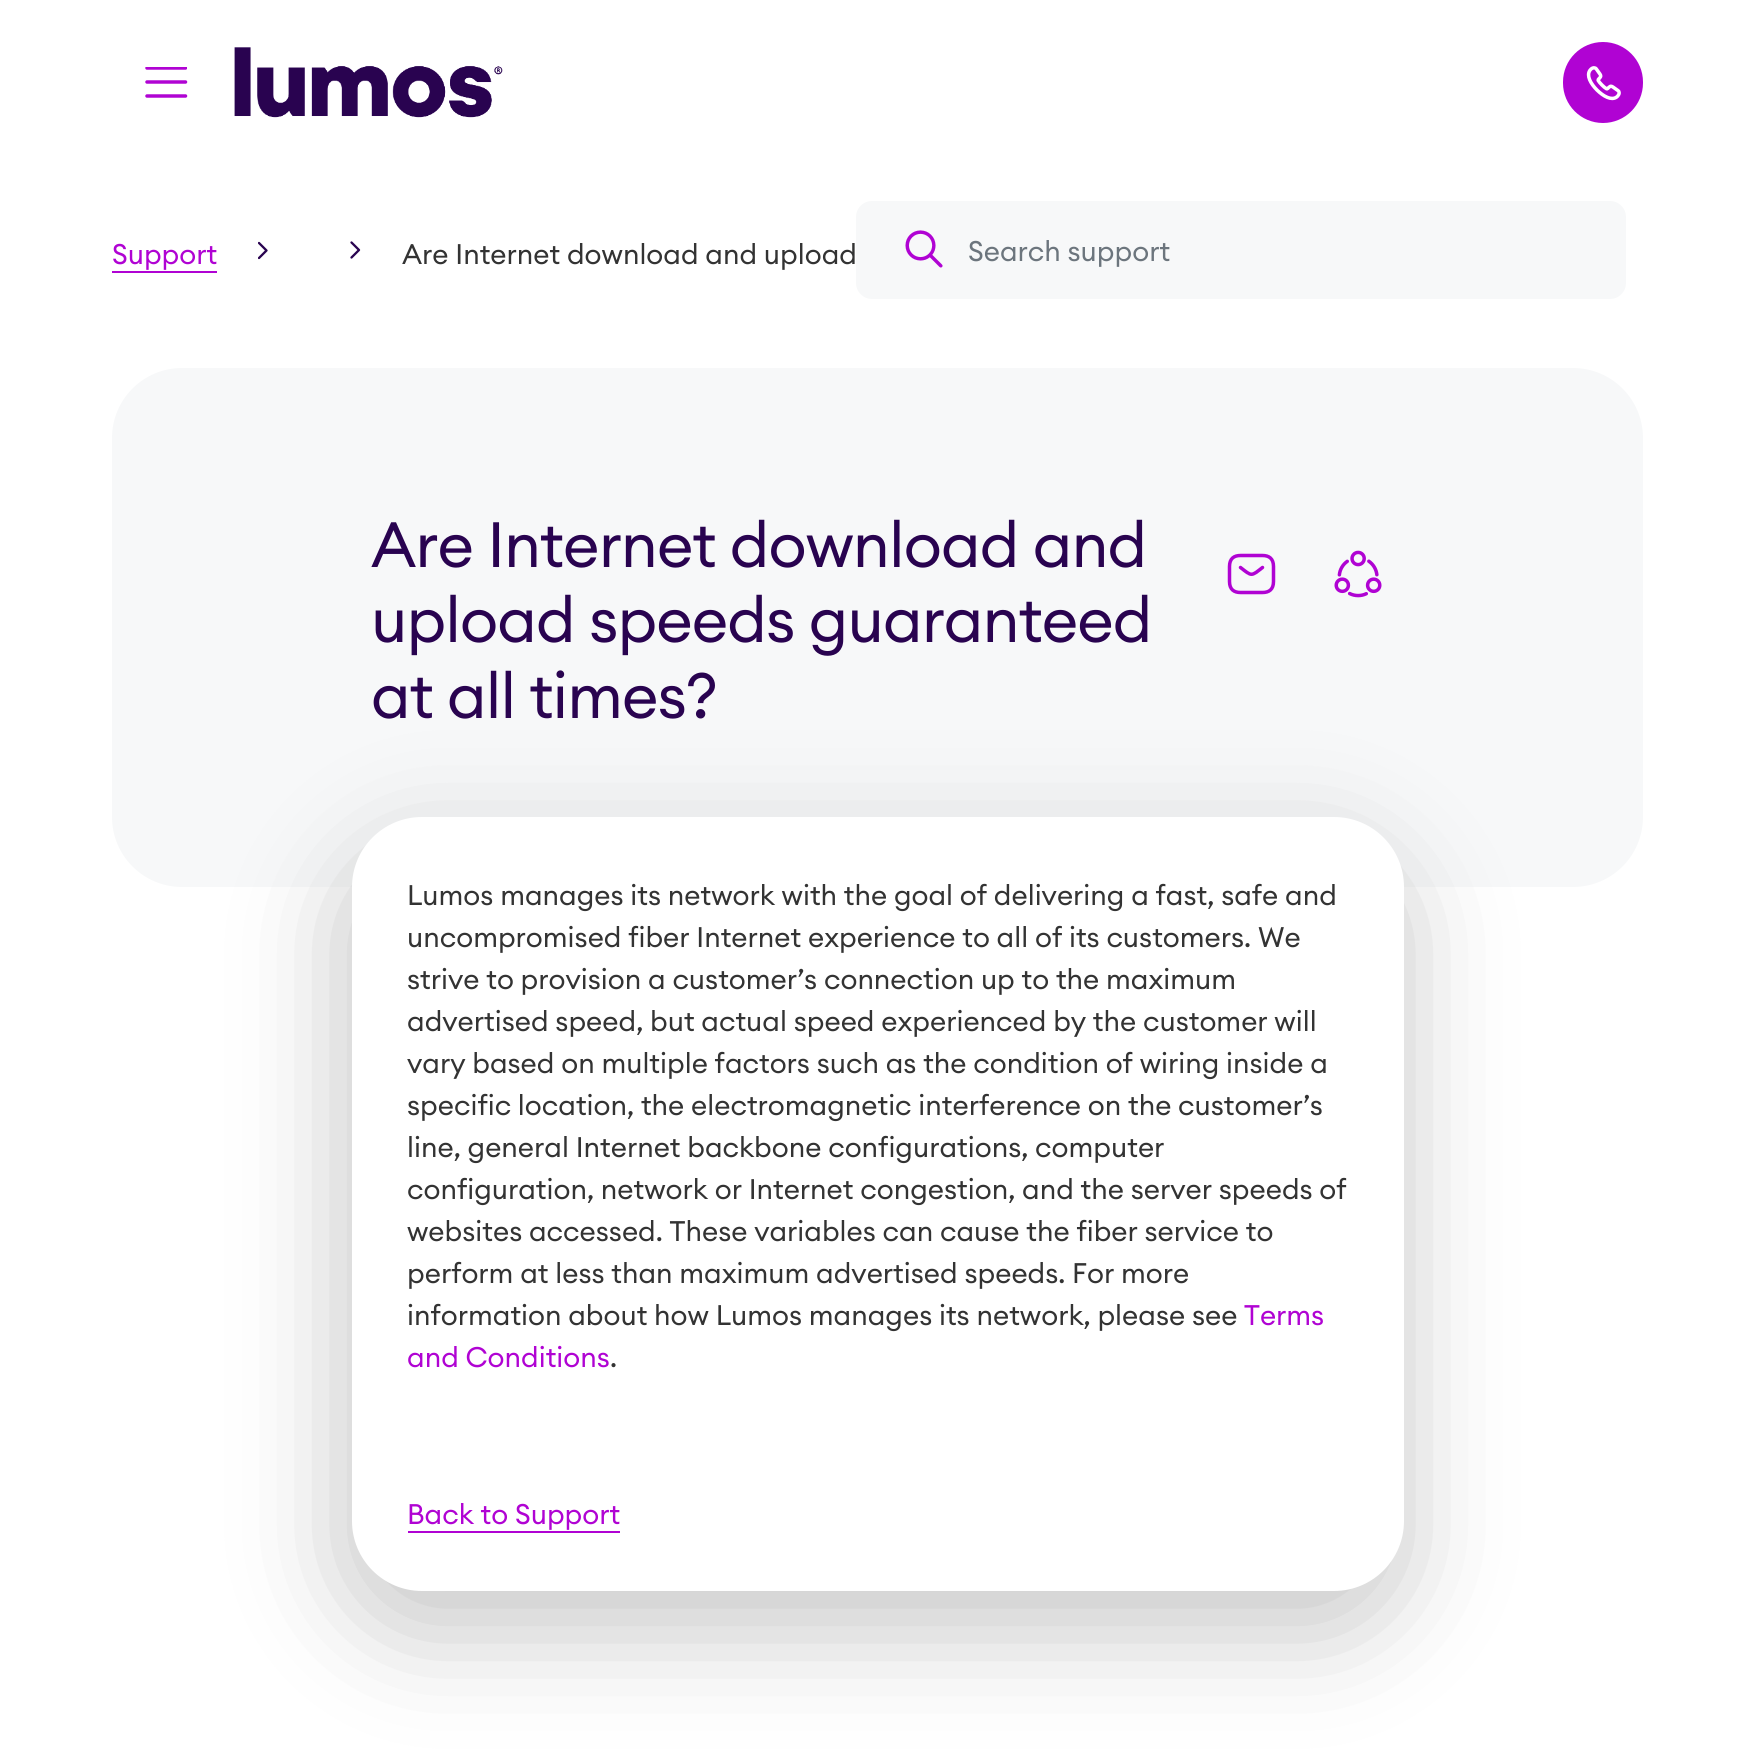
#include <cairo.h>
#include <math.h>
#include <stddef.h>

static cairo_t *c;
static void C(unsigned color){cairo_set_source_rgb(c, (color >> 16) / 255.0, (color >> 8 & 255) / 255.0, (color & 255) / 255.0);}
static void F(const char *family, double size, int italic, int bold){cairo_select_font_face(c, family, italic ? CAIRO_FONT_SLANT_ITALIC : CAIRO_FONT_SLANT_NORMAL,bold ? CAIRO_FONT_WEIGHT_BOLD : CAIRO_FONT_WEIGHT_NORMAL);cairo_set_font_size(c, size);}
static void T(double x, double y, const char *s){cairo_move_to(c, x, y);cairo_show_text(c, s);}
static void L(double x, double y, const char *s, double letter, double word){cairo_move_to(c, x, y);while (*s) {char ch[5] = {0};int n = 0;do ch[n++] = *s++; while ((*s & 0xC0) == 0x80);cairo_show_text(c, ch);cairo_rel_move_to(c, letter + word * (*ch == ' '), 0);}}
static void R(double x, double y, double w, double h){cairo_rectangle(c, x, y, w, h);cairo_fill(c);}
static void Q(double x, double y, double w, double h, double r){cairo_new_sub_path(c);cairo_arc(c, x + w - r, y + h - r, r, 0, M_PI / 2);cairo_arc(c, x + r, y + h - r, r, M_PI / 2, M_PI);cairo_arc(c, x + r, y + r, r, M_PI, 1.5 * M_PI);cairo_arc(c, x + w - r, y + r, r, 1.5 * M_PI, 2 * M_PI);cairo_close_path(c);}
static void S(double x, double y, double w, double h, double r, double blur, double alpha){cairo_push_group_with_content(c, CAIRO_CONTENT_ALPHA);cairo_set_operator(c, CAIRO_OPERATOR_SOURCE);for (int i = 15; i >= -15 && fmin(w, h) + blur * i / 3 > 0; i -= 2) {double e = blur * i / 6;cairo_set_source_rgba(c, 0, 0, 0, alpha * erfc((i - 1) / 8.5) / 2);Q(x - e, y - e, w + 2 * e, h + 2 * e, fmax(0, fmin(r + e + blur * .6, fmin(w, h) / 2 + e)));cairo_fill(c);}cairo_pattern_t *soft = cairo_pop_group(c);cairo_mask(c, soft);cairo_pattern_destroy(soft);}
static void I(const char *path, double x, double y, double w, double h){cairo_surface_t *image = cairo_image_surface_create_from_png(path);cairo_save(c);cairo_set_source_surface(c, image, x, y);cairo_rectangle(c, x, y, w, h);cairo_fill(c);cairo_restore(c);cairo_surface_destroy(image);}
int main(void) {
cairo_surface_t *surface = cairo_image_surface_create(CAIRO_FORMAT_RGB24, 1755, 1755);
c = cairo_create(surface);
cairo_font_options_t *options = cairo_font_options_create();
cairo_font_options_set_hint_metrics(options, CAIRO_HINT_METRICS_OFF);
cairo_font_options_set_hint_style(options, CAIRO_HINT_STYLE_NONE);
cairo_set_font_options(c, options);
cairo_set_miter_limit(c, 4);
C(0xffffff);
cairo_paint(c);
cairo_save(c);
cairo_rectangle(c,145,67,42,31);
cairo_clip(c);
cairo_new_path(c);
cairo_move_to(c,147,68);
cairo_line_to(c,185.5,68);
C(0xb003d3);
cairo_set_line_width(c,3.5);
cairo_set_line_cap(c,CAIRO_LINE_CAP_ROUND);
cairo_stroke(c);
cairo_restore(c);
cairo_new_path(c);
cairo_move_to(c,147,82);
cairo_line_to(c,185.5,82);
cairo_move_to(c,147,96);
cairo_line_to(c,185.5,96);
C(0xb003d3);
cairo_set_line_width(c,3.5);
cairo_set_line_cap(c,CAIRO_LINE_CAP_ROUND);
cairo_stroke(c);
I("1.png",234,47,269,71);
Q(1563,42,80,81,40);
cairo_fill(c);
I("2.png",1586,66,35,35);
F("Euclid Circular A",28,0,0);
T(112,264,"Support");
R(112,271,105,2);
cairo_save(c);
cairo_new_path(c);
cairo_move_to(c,258,259.5);
cairo_line_to(c,258,241);
cairo_line_to(c,268.5,241);
cairo_line_to(c,268.5,259.5);
cairo_close_path(c);
cairo_clip(c);
cairo_new_path(c);
cairo_move_to(c,259,243);
cairo_line_to(c,266.5,250.5);
cairo_line_to(c,259,258);
C(0x290350);
cairo_set_line_width(c,2.3);
cairo_set_line_join(c,CAIRO_LINE_JOIN_ROUND);
cairo_stroke(c);
cairo_restore(c);
cairo_save(c);
cairo_new_path(c);
cairo_move_to(c,350.5,259.5);
cairo_line_to(c,350.5,241);
cairo_line_to(c,360.5,241);
cairo_line_to(c,360.5,259.5);
cairo_close_path(c);
cairo_clip(c);
cairo_new_path(c);
cairo_move_to(c,351.5,242.5);
cairo_line_to(c,359,250);
cairo_line_to(c,351.5,257.5);
C(0x290350);
cairo_set_line_width(c,2.3);
cairo_set_line_join(c,CAIRO_LINE_JOIN_ROUND);
cairo_stroke(c);
cairo_restore(c);
C(0x333333);
T(402,264,"Are Internet download and upload");
C(0xf7f8f9);
Q(856,201,770,98,16);
cairo_fill(c);
I("3.png",905,230,38,38);
C(0x6c757d);
T(968,261,"Search support");
C(0xf7f8f9);
Q(112,368,1531,519,70);
cairo_fill(c);
F("Euclid Circular A",63,0,0);
C(0x290350);
L(371,567,"Are Internet download and",-.95,0);
L(371,642,"upload speeds guaranteed",-.95,0);
L(371,718,"at all times?",-.95,0);
cairo_new_path(c);
cairo_move_to(c,1262.5,592.5);
cairo_line_to(c,1240.5,592.5);
cairo_curve_to(c,1234,592.5,1229.5,589.5,1229.5,581.5);
cairo_line_to(c,1229.5,566.5);
cairo_curve_to(c,1229.5,558.5,1234,555.5,1240.5,555.5);
cairo_line_to(c,1262.5,555.5);
cairo_curve_to(c,1269,555.5,1273.5,558.5,1273.5,566.5);
cairo_line_to(c,1273.5,581.5);
cairo_curve_to(c,1273.5,589.5,1269,592.5,1262.5,592.5);
cairo_close_path(c);
cairo_move_to(c,1262.5,567.5);
cairo_curve_to(c,1251,576.5,1252,576.5,1240.5,567.5);
C(0xb003d3);
cairo_set_line_join(c,CAIRO_LINE_JOIN_ROUND);
cairo_stroke(c);
I("4.png",1334,550,48,48);
C(0xcacaca);
S(338,844,1069,791,79,52.5,1);
C(0xffffff);
Q(352,817,1052,774,70);
cairo_fill(c);
F("Euclid Circular A",28,0,0);
C(0x333333);
T(407,905,"Lumos manages its network with the goal of delivering a fast, safe and");
T(407,947,"uncompromised fiber Internet experience to all of its customers. We");
T(407,989,"strive to provision a customer’s connection up to the maximum");
T(407,1031,"advertised speed, but actual speed experienced by the customer will");
T(407,1073,"vary based on multiple factors such as the condition of wiring inside a");
T(407,1115,"specific location, the electromagnetic interference on the customer’s");
T(407,1157,"line, general Internet backbone configurations, computer");
T(407,1199,"configuration, network or Internet congestion, and the server speeds of");
T(407,1241,"websites accessed. These variables can cause the fiber service to");
T(407,1283,"perform at less than maximum advertised speeds. For more");
T(407,1325,"information about how Lumos manages its network, please see");
C(0xb003d3);
T(1244,1325,"Terms");
T(407,1367,"and Conditions");
C(0x333333);
T(610,1367,".");
C(0xb003d3);
T(407,1524,"Back to Support");
R(408,1531,212,2);
cairo_surface_write_to_png(surface, "o.png");
cairo_font_options_destroy(options);
cairo_destroy(c);
cairo_surface_destroy(surface);
return 0;
}
